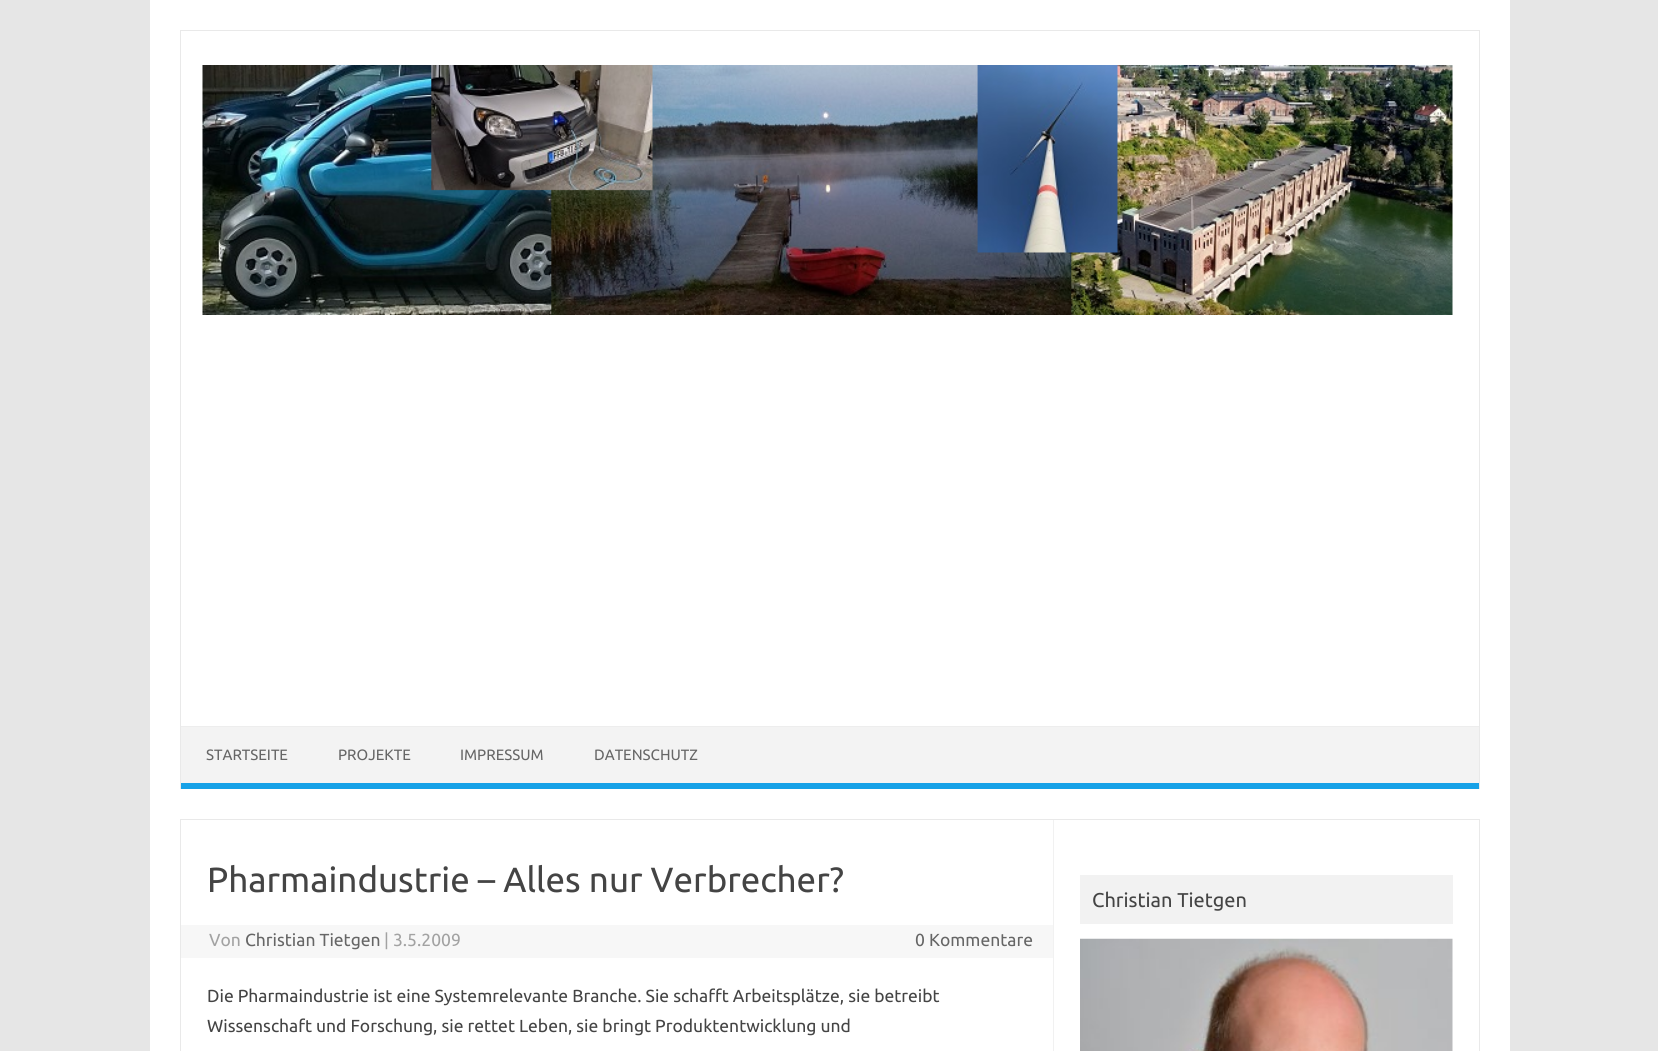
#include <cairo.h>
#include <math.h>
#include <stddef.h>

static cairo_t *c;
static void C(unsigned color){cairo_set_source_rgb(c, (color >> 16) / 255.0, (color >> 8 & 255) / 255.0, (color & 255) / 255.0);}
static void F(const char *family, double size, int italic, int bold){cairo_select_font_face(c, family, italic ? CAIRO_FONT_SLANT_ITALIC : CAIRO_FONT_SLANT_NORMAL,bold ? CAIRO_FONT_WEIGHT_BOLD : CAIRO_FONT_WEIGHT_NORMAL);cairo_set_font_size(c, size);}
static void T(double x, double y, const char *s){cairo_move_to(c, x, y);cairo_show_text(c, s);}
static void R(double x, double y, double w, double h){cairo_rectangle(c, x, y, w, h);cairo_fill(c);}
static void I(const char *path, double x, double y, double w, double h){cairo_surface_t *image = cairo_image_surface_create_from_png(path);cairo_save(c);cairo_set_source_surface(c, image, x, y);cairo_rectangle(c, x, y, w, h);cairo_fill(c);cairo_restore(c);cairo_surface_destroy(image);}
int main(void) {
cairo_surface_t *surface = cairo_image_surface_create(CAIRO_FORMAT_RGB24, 1658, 1051);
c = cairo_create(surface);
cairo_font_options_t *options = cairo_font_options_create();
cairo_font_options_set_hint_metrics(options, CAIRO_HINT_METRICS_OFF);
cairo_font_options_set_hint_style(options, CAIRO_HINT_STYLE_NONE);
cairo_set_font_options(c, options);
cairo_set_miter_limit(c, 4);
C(0xe6e6e6);
cairo_paint(c);
C(0xffffff);
R(150,0,1360,1051);
C(0xe9e9e9);
R(180,30,1300,1);
R(1479,30,1,759);
R(180,30,1,759);
I("1.png",202,65,1251,250);
C(0xf3f3f3);
R(181,727,1298,56);
C(0xededed);
R(181,726,1298,1);
C(0x16a1e7);
R(181,783,1298,6);
F("Ubuntu",15,0,0);
C(0x666666);
T(206,760,"STARTSEITE");
T(338,760,"PROJEKTE");
T(460,760,"IMPRESSUM");
T(594,760,"DATENSCHUTZ");
cairo_rectangle(c,180.5,819.5,1299,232);
C(0xe9e9e9);
cairo_set_line_width(c,1);
cairo_stroke(c);
C(0xf1f1f1);
R(1053,820,1,231);
F("Ubuntu",35,0,0);
C(0x444444);
T(207,892,"Pharmaindustrie – Alles nur Verbrecher?");
C(0xf7f7f7);
R(181,925,872,33);
F("Ubuntu",17.5,0,0);
C(0xa2a2a2);
T(209,946,"Von");
C(0x666666);
T(245,946,"Christian Tietgen");
C(0xa2a2a2);
T(384,946,"| 3.5.2009");
C(0x666666);
T(915,946,"0 Kommentare");
C(0x444444);
T(207,1002,"Die Pharmaindustrie ist eine Systemrelevante Branche. Sie schafft Arbeitsplätze, sie betreibt");
T(207,1032,"Wissenschaft und Forschung, sie rettet Leben, sie bringt Produktentwicklung und");
C(0xf2f2f2);
R(1080,875,373,49);
F("Ubuntu",20,0,0);
C(0x444444);
T(1092,907,"Christian Tietgen");
I("2.png",1080,938,373,113);
cairo_surface_write_to_png(surface, "o.png");
cairo_font_options_destroy(options);
cairo_destroy(c);
cairo_surface_destroy(surface);
return 0;
}
